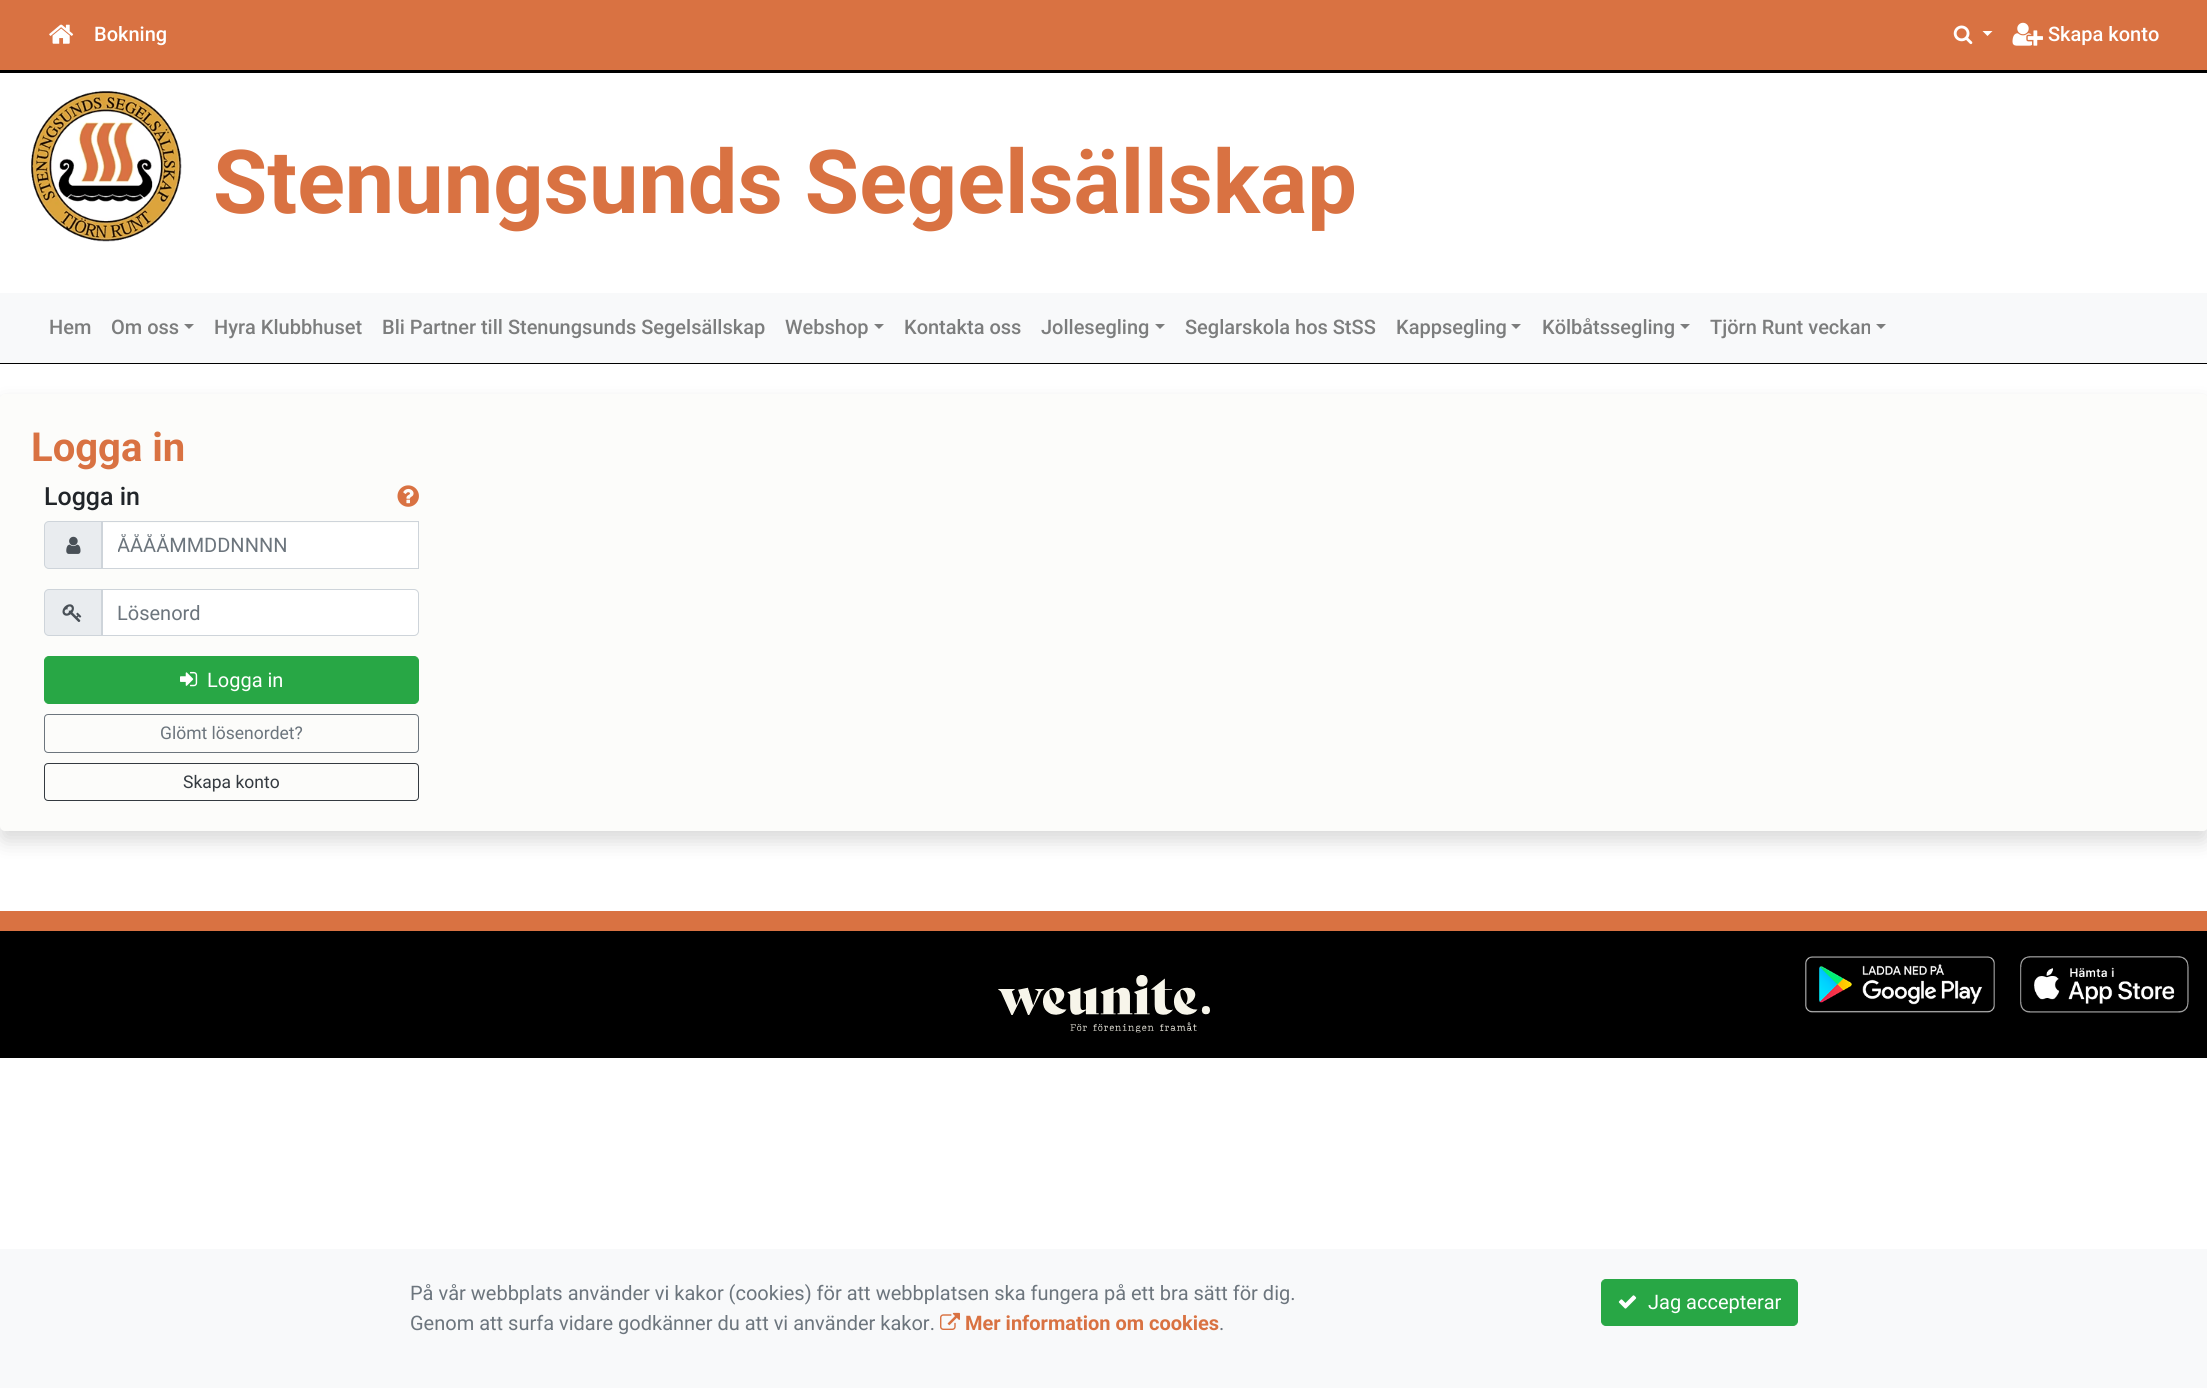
#include <cairo.h>
#include <math.h>
#include <stddef.h>

static cairo_t *c;
static void C(unsigned color){cairo_set_source_rgb(c, (color >> 16) / 255.0, (color >> 8 & 255) / 255.0, (color & 255) / 255.0);}
static void F(const char *family, double size, int italic, int bold){cairo_select_font_face(c, family, italic ? CAIRO_FONT_SLANT_ITALIC : CAIRO_FONT_SLANT_NORMAL,bold ? CAIRO_FONT_WEIGHT_BOLD : CAIRO_FONT_WEIGHT_NORMAL);cairo_set_font_size(c, size);}
static void T(double x, double y, const char *s){cairo_move_to(c, x, y);cairo_show_text(c, s);}
static void R(double x, double y, double w, double h){cairo_rectangle(c, x, y, w, h);cairo_fill(c);}
static void Q(double x, double y, double w, double h, double r){cairo_new_sub_path(c);cairo_arc(c, x + w - r, y + h - r, r, 0, M_PI / 2);cairo_arc(c, x + r, y + h - r, r, M_PI / 2, M_PI);cairo_arc(c, x + r, y + r, r, M_PI, 1.5 * M_PI);cairo_arc(c, x + w - r, y + r, r, 1.5 * M_PI, 2 * M_PI);cairo_close_path(c);}
static void S(double x, double y, double w, double h, double r, double blur, double alpha){cairo_push_group_with_content(c, CAIRO_CONTENT_ALPHA);cairo_set_operator(c, CAIRO_OPERATOR_SOURCE);for (int i = 15; i >= -15 && fmin(w, h) + blur * i / 3 > 0; i -= 2) {double e = blur * i / 6;cairo_set_source_rgba(c, 0, 0, 0, alpha * erfc((i - 1) / 8.5) / 2);Q(x - e, y - e, w + 2 * e, h + 2 * e, fmax(0, fmin(r + e + blur * .6, fmin(w, h) / 2 + e)));cairo_fill(c);}cairo_pattern_t *soft = cairo_pop_group(c);cairo_mask(c, soft);cairo_pattern_destroy(soft);}
static void I(const char *path, double x, double y, double w, double h){cairo_surface_t *image = cairo_image_surface_create_from_png(path);cairo_save(c);cairo_set_source_surface(c, image, x, y);cairo_rectangle(c, x, y, w, h);cairo_fill(c);cairo_restore(c);cairo_surface_destroy(image);}
int main(void) {
cairo_surface_t *surface = cairo_image_surface_create(CAIRO_FORMAT_RGB24, 2207, 1388);
c = cairo_create(surface);
cairo_font_options_t *options = cairo_font_options_create();
cairo_font_options_set_hint_metrics(options, CAIRO_HINT_METRICS_OFF);
cairo_font_options_set_hint_style(options, CAIRO_HINT_STYLE_NONE);
cairo_set_font_options(c, options);
cairo_set_miter_limit(c, 4);
C(0xffffff);
cairo_paint(c);
C(0xd97242);
R(0,0,2207,70);
C(0x000000);
R(0,70,2207,3);
I("1.png",49,24,25,20);
F("Roboto Medium",20,0,0);
C(0xffffff);
T(94,41,"Bokning");
I("2.png",1953,25,20,20);
cairo_new_path(c);
cairo_move_to(c,1982.5,31);
cairo_line_to(c,1992.5,31);
cairo_line_to(c,1987.5,36);
cairo_close_path(c);
cairo_fill(c);
I("3.png",2012,22,31,24);
T(2048,41,"Skapa konto");
I("4.png",31,91,151,151);
F("Roboto",88.25,0,1);
C(0xd97242);
T(213,213,"Stenungsunds Segelsällskap");
C(0xf8f9fa);
R(0,293,2207,70);
F("Roboto Medium",20,0,0);
C(0x7c7d7d);
T(49,334,"Hem");
T(111,334,"Om oss");
cairo_new_path(c);
cairo_move_to(c,184,324);
cairo_line_to(c,194,324);
cairo_line_to(c,189,329);
cairo_close_path(c);
cairo_fill(c);
T(214,334,"Hyra Klubbhuset");
T(382,334,"Bli Partner till Stenungsunds Segelsällskap");
T(785,334,"Webshop");
cairo_new_path(c);
cairo_move_to(c,874,324);
cairo_line_to(c,884,324);
cairo_line_to(c,879,329);
cairo_close_path(c);
cairo_fill(c);
T(904,334,"Kontakta oss");
T(1041,334,"Jollesegling");
cairo_new_path(c);
cairo_move_to(c,1155,324);
cairo_line_to(c,1165,324);
cairo_line_to(c,1160,329);
cairo_close_path(c);
cairo_fill(c);
T(1185,334,"Seglarskola hos StSS");
T(1396,334,"Kappsegling");
cairo_new_path(c);
cairo_move_to(c,1511,324);
cairo_line_to(c,1521,324);
cairo_line_to(c,1516,329);
cairo_close_path(c);
cairo_fill(c);
T(1542,334,"Kölbåtssegling");
cairo_new_path(c);
cairo_move_to(c,1680,324);
cairo_line_to(c,1690,324);
cairo_line_to(c,1685,329);
cairo_close_path(c);
cairo_fill(c);
T(1710,334,"Tjörn Runt veckan");
cairo_new_path(c);
cairo_move_to(c,1876,324);
cairo_line_to(c,1886,324);
cairo_line_to(c,1881,329);
cairo_close_path(c);
cairo_fill(c);
C(0x000000);
R(0,363,2207,1);
C(0x000000);
S(0,404,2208,437,5,10,.15);
C(0xfcfcfa);
Q(0,394,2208,437,5);
cairo_fill(c);
F("Roboto",40,0,1);
C(0xd97242);
T(31,461,"Logga in");
F("Roboto Medium",25,0,0);
C(0x212529);
T(44,505,"Logga in");
I("5.png",397,485,22,22);
C(0xe9ecef);
cairo_new_path(c);
cairo_move_to(c,49,521.5);
cairo_line_to(c,102.5,521.5);
cairo_line_to(c,102.5,568.5);
cairo_line_to(c,49,568.5);
cairo_curve_to(c,46.5,568.5,44.5,566.5,44.5,564);
cairo_line_to(c,44.5,526);
cairo_curve_to(c,44.5,523.5,46.5,521.5,49,521.5);
cairo_close_path(c);
cairo_fill_preserve(c);
C(0xced4da);
cairo_set_line_width(c,1);
cairo_stroke(c);
I("6.png",66,536,15,18);
C(0xffffff);
R(103,523,315,45);
cairo_rectangle(c,101.5,521.5,317,47);
C(0xced4da);
cairo_stroke(c);
cairo_save(c);
cairo_rectangle(c,118,534,285,24);
cairo_clip(c);
F("Roboto",20,0,0);
C(0x6c757d);
T(117,552,"ÅÅÅÅMMDDNNNN");
cairo_restore(c);
C(0xe9ecef);
cairo_new_path(c);
cairo_move_to(c,49,589.5);
cairo_line_to(c,102.5,589.5);
cairo_line_to(c,102.5,635.5);
cairo_line_to(c,49,635.5);
cairo_curve_to(c,46.5,635.5,44.5,633.5,44.5,631);
cairo_line_to(c,44.5,594);
cairo_curve_to(c,44.5,591.5,46.5,589.5,49,589.5);
cairo_close_path(c);
cairo_fill_preserve(c);
C(0xced4da);
cairo_stroke(c);
I("7.png",62,604,20,18);
C(0xffffff);
cairo_new_path(c);
cairo_move_to(c,103,590);
cairo_line_to(c,414,590);
cairo_curve_to(c,416,590,418,592,418,594);
cairo_line_to(c,418,631);
cairo_curve_to(c,418,633,416,635,414,635);
cairo_line_to(c,103,635);
cairo_close_path(c);
cairo_fill(c);
cairo_new_path(c);
cairo_move_to(c,101.5,589.5);
cairo_line_to(c,414,589.5);
cairo_curve_to(c,416.5,589.5,418.5,591.5,418.5,594);
cairo_line_to(c,418.5,631);
cairo_curve_to(c,418.5,633.5,416.5,635.5,414,635.5);
cairo_line_to(c,101.5,635.5);
cairo_close_path(c);
C(0xced4da);
cairo_stroke(c);
F("Roboto",20,0,0);
C(0x6c757d);
T(117,620,"Lösenord");
C(0x28a745);
Q(44.5,656.5,374,47,4.5);
cairo_fill_preserve(c);
cairo_stroke(c);
I("8.png",180,671,18,16);
C(0xffffff);
T(207,687,"Logga in");
Q(44.5,714.5,374,38,3.5);
C(0x6c757d);
cairo_stroke(c);
F("Roboto",17.5,0,0);
T(160,739,"Glömt lösenordet?");
Q(44.5,763.5,374,37,3.5);
C(0x343a40);
cairo_stroke(c);
T(183,788,"Skapa konto");
C(0xd97242);
R(0,911,2207,20);
C(0x000000);
R(0,931,2207,127);
I("9.png",998,975,212,58);
I("10.png",1805,956,190,57);
I("11.png",2020,956,169,57);
C(0xf8f9fa);
R(0,1249,2207,139);
F("Roboto",20,0,0);
C(0x6c757d);
T(410,1300,"På vår webbplats använder vi kakor (cookies) för att webbplatsen ska fungera på ett bra sätt för dig.");
T(410,1330,"Genom att surfa vidare godkänner du att vi använder kakor.");
I("12.png",940,1312,20,18);
F("Roboto",20,0,1);
C(0xd97242);
T(965,1330,"Mer information om cookies");
F("Roboto",20,0,0);
C(0x6c757d);
T(1219,1330,".");
C(0x28a745);
Q(1601.5,1279.5,196,46,4.5);
cairo_fill_preserve(c);
cairo_stroke(c);
I("13.png",1618,1295,19,14);
C(0xffffff);
T(1648,1309,"Jag accepterar");
cairo_surface_write_to_png(surface, "o.png");
cairo_font_options_destroy(options);
cairo_destroy(c);
cairo_surface_destroy(surface);
return 0;
}
